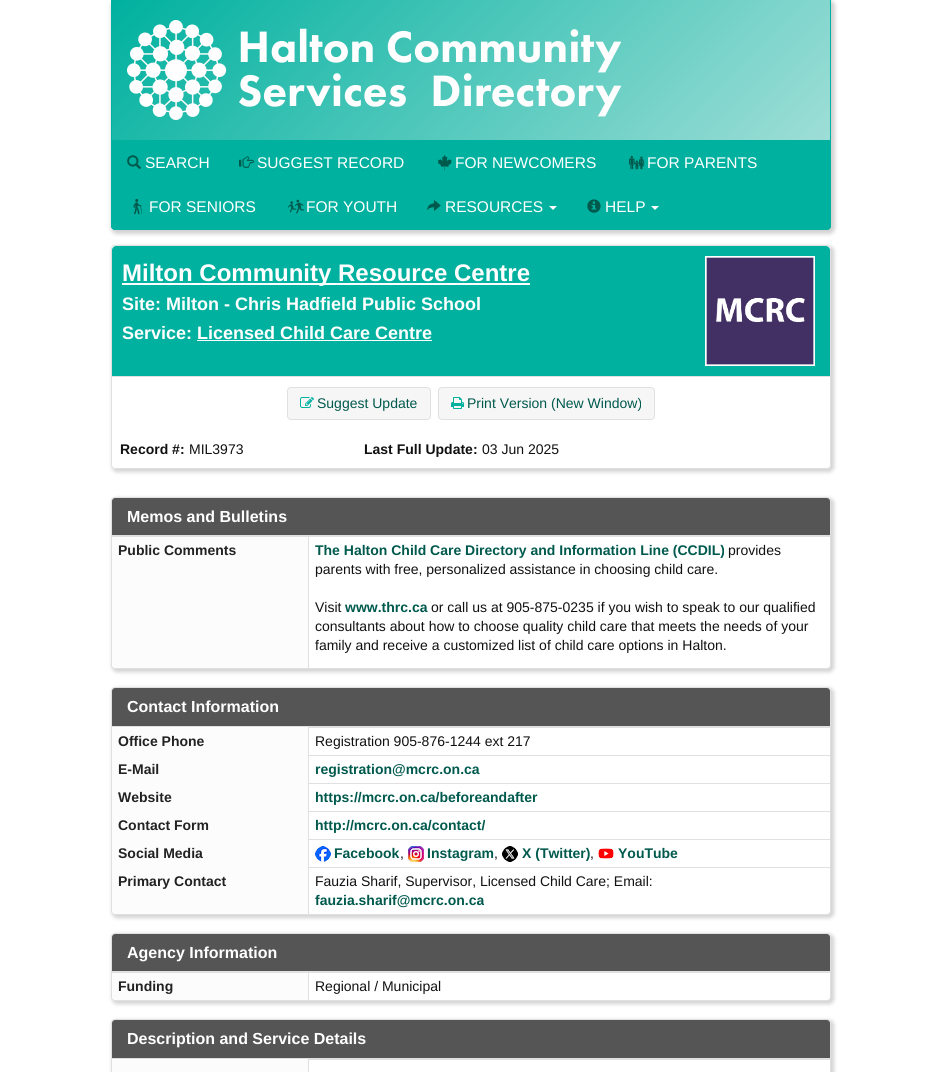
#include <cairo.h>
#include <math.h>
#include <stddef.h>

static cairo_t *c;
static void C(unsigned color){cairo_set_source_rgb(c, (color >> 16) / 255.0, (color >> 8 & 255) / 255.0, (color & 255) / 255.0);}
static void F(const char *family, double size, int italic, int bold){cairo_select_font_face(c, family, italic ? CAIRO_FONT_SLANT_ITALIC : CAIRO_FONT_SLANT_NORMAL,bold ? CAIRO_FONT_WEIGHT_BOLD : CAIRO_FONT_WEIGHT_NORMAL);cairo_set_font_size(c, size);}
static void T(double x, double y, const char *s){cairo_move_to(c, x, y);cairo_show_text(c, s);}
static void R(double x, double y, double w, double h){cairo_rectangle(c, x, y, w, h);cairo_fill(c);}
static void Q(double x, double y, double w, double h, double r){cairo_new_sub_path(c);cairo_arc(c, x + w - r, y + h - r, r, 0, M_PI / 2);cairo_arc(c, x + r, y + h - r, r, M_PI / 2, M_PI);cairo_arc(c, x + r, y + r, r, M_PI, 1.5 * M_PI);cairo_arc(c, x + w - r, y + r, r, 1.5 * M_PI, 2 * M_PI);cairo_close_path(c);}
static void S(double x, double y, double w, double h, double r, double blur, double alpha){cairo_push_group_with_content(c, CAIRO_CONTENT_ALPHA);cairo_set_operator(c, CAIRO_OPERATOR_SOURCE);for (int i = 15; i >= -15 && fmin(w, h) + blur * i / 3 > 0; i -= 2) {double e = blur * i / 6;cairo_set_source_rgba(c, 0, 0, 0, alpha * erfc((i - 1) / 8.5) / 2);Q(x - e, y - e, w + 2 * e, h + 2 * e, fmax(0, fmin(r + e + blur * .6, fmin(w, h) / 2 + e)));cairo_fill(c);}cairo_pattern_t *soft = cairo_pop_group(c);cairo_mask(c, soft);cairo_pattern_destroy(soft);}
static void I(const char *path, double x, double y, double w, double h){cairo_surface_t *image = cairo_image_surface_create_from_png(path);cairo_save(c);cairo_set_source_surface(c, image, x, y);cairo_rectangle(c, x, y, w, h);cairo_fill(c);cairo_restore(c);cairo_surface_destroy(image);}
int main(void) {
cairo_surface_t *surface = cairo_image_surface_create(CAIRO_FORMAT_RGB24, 942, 1072);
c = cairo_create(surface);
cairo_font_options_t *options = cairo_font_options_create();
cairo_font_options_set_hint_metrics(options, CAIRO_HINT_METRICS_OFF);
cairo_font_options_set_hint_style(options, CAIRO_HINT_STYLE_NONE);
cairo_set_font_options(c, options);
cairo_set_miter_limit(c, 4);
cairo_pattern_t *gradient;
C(0xffffff);
cairo_paint(c);
C(0x666666);
S(111,0,724,234,6,2,.3);
C(0x00b19f);
cairo_new_path(c);
cairo_move_to(c,111,0);
cairo_line_to(c,831,0);
cairo_line_to(c,831,226);
cairo_curve_to(c,831,228,829,230,827,230);
cairo_line_to(c,115,230);
cairo_curve_to(c,113,230,111,228,111,226);
cairo_close_path(c);
cairo_fill(c);
cairo_set_fill_rule(c,CAIRO_FILL_RULE_EVEN_ODD);
cairo_new_path(c);
cairo_move_to(c,111,0);
cairo_line_to(c,831,0);
cairo_line_to(c,831,226);
cairo_curve_to(c,831,228,829,230,827,230);
cairo_line_to(c,115,230);
cairo_curve_to(c,113,230,111,228,111,226);
cairo_close_path(c);
cairo_move_to(c,112,0);
cairo_line_to(c,830,0);
cairo_line_to(c,830,226);
cairo_curve_to(c,830,228,829,229,827,229);
cairo_line_to(c,115,229);
cairo_curve_to(c,113,229,112,228,112,226);
cairo_close_path(c);
cairo_fill(c);
gradient = cairo_pattern_create_linear(257,-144,686,285);
cairo_pattern_add_color_stop_rgba(gradient,0,0,0.694,0.624,1);
cairo_pattern_add_color_stop_rgba(gradient,1,0.62,0.871,0.843,1);
cairo_set_source(c,gradient);
cairo_pattern_destroy(gradient);
R(112,0,718,140);
I("1.png",127,20,494,100);
I("2.png",127,155,14,14);
F("Liberation Sans",15.5,0,0);
C(0xffffff);
T(145,168,"SEARCH");
I("3.png",239,156,15,12);
T(257,168,"SUGGEST RECORD");
I("4.png",437,155,15,16);
T(455,168,"FOR NEWCOMERS");
I("5.png",629,155,16,15);
T(647,168,"FOR PARENTS");
I("6.png",133,199,9,16);
T(149,212,"FOR SENIORS");
I("7.png",288,199,17,15);
T(306,212,"FOR YOUTH");
I("8.png",427,200,14,11);
T(445,212,"RESOURCES");
cairo_set_fill_rule(c,CAIRO_FILL_RULE_WINDING);
cairo_new_path(c);
cairo_move_to(c,549,206);
cairo_line_to(c,557,206);
cairo_line_to(c,553,210);
cairo_close_path(c);
cairo_fill(c);
I("9.png",587,199,14,14);
T(605,212,"HELP");
cairo_new_path(c);
cairo_move_to(c,651,206);
cairo_line_to(c,659,206);
cairo_line_to(c,655,210);
cairo_close_path(c);
cairo_fill(c);
cairo_save(c);
cairo_set_fill_rule(c,CAIRO_FILL_RULE_EVEN_ODD);
cairo_new_path(c);
cairo_move_to(c,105,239);
cairo_line_to(c,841,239);
cairo_line_to(c,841,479);
cairo_line_to(c,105,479);
cairo_close_path(c);
cairo_move_to(c,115,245);
cairo_line_to(c,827,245);
cairo_curve_to(c,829,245,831,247,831,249);
cairo_line_to(c,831,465);
cairo_curve_to(c,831,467,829,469,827,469);
cairo_line_to(c,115,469);
cairo_curve_to(c,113,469,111,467,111,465);
cairo_line_to(c,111,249);
cairo_curve_to(c,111,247,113,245,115,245);
cairo_close_path(c);
cairo_clip(c);
C(0x666666);
S(112,246,722,226,5,2,.3);
cairo_restore(c);
Q(111.5,245.5,719,223,3.5);
C(0xe0e0e0);
cairo_set_line_width(c,1);
cairo_stroke(c);
C(0x00b19f);
cairo_new_path(c);
cairo_move_to(c,116,246);
cairo_line_to(c,826,246);
cairo_curve_to(c,828,246,830,248,830,250);
cairo_line_to(c,830,377);
cairo_line_to(c,112,377);
cairo_line_to(c,112,250);
cairo_curve_to(c,112,248,114,246,116,246);
cairo_close_path(c);
cairo_fill(c);
C(0xe0e0e0);
R(112,376,718,1);
C(0xffffff);
R(122,283,408,2);
F("Liberation Sans",24,0,1);
T(122,281,"Milton Community Resource Centre");
F("Liberation Sans",18,0,1);
T(122,310,"Site: Milton - Chris Hadfield Public School");
T(122,339,"Service: Licensed Child Care Centre");
R(197,340,235,1);
I("10.png",705,256,110,110);
C(0xf6f6f6);
Q(287.5,387.5,143,32,3.5);
cairo_fill_preserve(c);
C(0xe0e0e0);
cairo_stroke(c);
I("11.png",300,397,14,11);
F("Liberation Sans",14,0,0);
C(0x00594d);
T(317,408,"Suggest Update");
C(0xf6f6f6);
Q(438.5,387.5,216,32,3.5);
cairo_fill_preserve(c);
C(0xe0e0e0);
cairo_stroke(c);
I("12.png",451,397,13,12);
C(0x00594d);
T(467,408,"Print Version (New Window)");
F("Liberation Sans",14,0,1);
C(0x111111);
T(120,454,"Record #:");
F("Liberation Sans",14,0,0);
T(189,454,"MIL3973");
F("Liberation Sans",14,0,1);
T(364,454,"Last Full Update:");
F("Liberation Sans",14,0,0);
T(482,454,"03 Jun 2025");
C(0x666666);
S(112,498,722,174,5,2,.3);
C(0xffffff);
Q(111.5,497.5,719,171,3.5);
cairo_fill_preserve(c);
C(0xe0e0e0);
cairo_stroke(c);
C(0x555555);
cairo_new_path(c);
cairo_move_to(c,115,498);
cairo_line_to(c,827,498);
cairo_curve_to(c,828.5,498,830,499.5,830,501);
cairo_line_to(c,830,536);
cairo_line_to(c,112,536);
cairo_line_to(c,112,501);
cairo_curve_to(c,112,499.5,113.5,498,115,498);
cairo_close_path(c);
cairo_fill(c);
C(0xe0e0e0);
R(112,535,718,2);
F("Liberation Sans",16,0,1);
C(0xffffff);
T(127,522,"Memos and Bulletins");
C(0xfcfcfc);
cairo_new_path(c);
cairo_move_to(c,112,537);
cairo_line_to(c,308,537);
cairo_line_to(c,308,668);
cairo_line_to(c,116,668);
cairo_curve_to(c,114,668,112,666,112,664);
cairo_close_path(c);
cairo_fill(c);
F("Liberation Sans",14,0,1);
C(0x222222);
T(118,555,"Public Comments");
C(0xe0e0e0);
R(308,536,1,133);
C(0x00594d);
T(315,555,"The Halton Child Care Directory and Information Line (CCDIL)");
F("Liberation Sans",14,0,0);
C(0x111111);
T(728,555,"provides");
T(315,574,"parents with free, personalized assistance in choosing child care.");
T(315,612,"Visit");
F("Liberation Sans",14,0,1);
C(0x00594d);
T(345,612,"www.thrc.ca");
F("Liberation Sans",14,0,0);
C(0x111111);
T(431,612,"or call us at 905-875-0235 if you wish to speak to our qualified");
T(315,631,"consultants about how to choose quality child care that meets the needs of your");
T(315,650,"family and receive a customized list of child care options in Halton.");
C(0x666666);
S(112,688,722,230,5,2,.3);
C(0xffffff);
Q(111.5,687.5,719,227,3.5);
cairo_fill_preserve(c);
C(0xe0e0e0);
cairo_stroke(c);
C(0x555555);
cairo_new_path(c);
cairo_move_to(c,115,688);
cairo_line_to(c,827,688);
cairo_curve_to(c,828.5,688,830,689.5,830,691);
cairo_line_to(c,830,727);
cairo_line_to(c,112,727);
cairo_line_to(c,112,691);
cairo_curve_to(c,112,689.5,113.5,688,115,688);
cairo_close_path(c);
cairo_fill(c);
C(0xe0e0e0);
R(112,726,718,1);
F("Liberation Sans",16,0,1);
C(0xffffff);
T(127,712,"Contact Information");
C(0xe0e0e0);
R(309,727,521,1);
C(0xfcfcfc);
R(112,727,196,140);
F("Liberation Sans",14,0,1);
C(0x222222);
T(118,746,"Office Phone");
F("Liberation Sans",14,0,0);
C(0x111111);
T(315,746,"Registration 905-876-1244 ext 217");
F("Liberation Sans",14,0,1);
C(0x222222);
T(118,774,"E-Mail");
C(0xe0e0e0);
R(308,755,523,1);
R(308,783,523,1);
R(308,811,523,1);
R(308,839,523,1);
R(308,867,523,1);
R(308,867,1,47);
R(308,839,1,29);
R(308,811,1,29);
R(308,783,1,29);
R(308,727,1,57);
C(0x00594d);
T(315,774,"registration@mcrc.on.ca");
C(0x222222);
T(118,802,"Website");
C(0x00594d);
T(315,802,"https://mcrc.on.ca/beforeandafter");
C(0x222222);
T(118,830,"Contact Form");
C(0x00594d);
T(315,830,"http://mcrc.on.ca/contact/");
C(0x222222);
T(118,858,"Social Media");
I("13.png",315,846,16,16);
C(0x00594d);
T(334,858,"Facebook");
F("Liberation Sans",14,0,0);
C(0x111111);
T(400,858,",");
I("14.png",408,846,16,16);
F("Liberation Sans",14,0,1);
C(0x00594d);
T(427,858,"Instagram");
F("Liberation Sans",14,0,0);
C(0x111111);
T(494,858,",");
I("15.png",502,846,16,16);
F("Liberation Sans",14,0,1);
C(0x00594d);
T(522,858,"X (Twitter)");
F("Liberation Sans",14,0,0);
C(0x111111);
T(590,858,",");
I("16.png",598,848,16,11);
F("Liberation Sans",14,0,1);
C(0x00594d);
T(618,858,"YouTube");
C(0xfcfcfc);
cairo_new_path(c);
cairo_move_to(c,112,867);
cairo_line_to(c,308,867);
cairo_line_to(c,308,914);
cairo_line_to(c,116,914);
cairo_curve_to(c,114,914,112,912,112,910);
cairo_close_path(c);
cairo_fill(c);
C(0x222222);
T(118,886,"Primary Contact");
F("Liberation Sans",14,0,0);
C(0x111111);
T(315,886,"Fauzia Sharif, Supervisor, Licensed Child Care; Email:");
F("Liberation Sans",14,0,1);
C(0x00594d);
T(315,905,"fauzia.sharif@mcrc.on.ca");
C(0x666666);
S(112,934,722,70,5,2,.3);
C(0xffffff);
Q(111.5,933.5,719,67,3.5);
cairo_fill_preserve(c);
C(0xe0e0e0);
cairo_stroke(c);
C(0x555555);
cairo_new_path(c);
cairo_move_to(c,115,934);
cairo_line_to(c,827,934);
cairo_curve_to(c,828.5,934,830,935.5,830,937);
cairo_line_to(c,830,972);
cairo_line_to(c,112,972);
cairo_line_to(c,112,937);
cairo_curve_to(c,112,935.5,113.5,934,115,934);
cairo_close_path(c);
cairo_fill(c);
C(0xe0e0e0);
R(112,971,718,2);
F("Liberation Sans",16,0,1);
C(0xffffff);
T(127,958,"Agency Information");
C(0xfcfcfc);
cairo_new_path(c);
cairo_move_to(c,112,973);
cairo_line_to(c,308,973);
cairo_line_to(c,308,1000);
cairo_line_to(c,116,1000);
cairo_curve_to(c,114,1000,112,998,112,996);
cairo_close_path(c);
cairo_fill(c);
F("Liberation Sans",14,0,1);
C(0x222222);
T(118,991,"Funding");
C(0xe0e0e0);
R(308,972,1,29);
F("Liberation Sans",14,0,0);
C(0x111111);
T(315,991,"Regional / Municipal");
C(0x666666);
S(112,1020,722,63,5,2,.3);
C(0xffffff);
Q(111.5,1019.5,719,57,3.5);
cairo_fill_preserve(c);
C(0xe0e0e0);
cairo_stroke(c);
C(0x555555);
cairo_new_path(c);
cairo_move_to(c,115,1020);
cairo_line_to(c,827,1020);
cairo_curve_to(c,828.5,1020,830,1021.5,830,1023);
cairo_line_to(c,830,1059);
cairo_line_to(c,112,1059);
cairo_line_to(c,112,1023);
cairo_curve_to(c,112,1021.5,113.5,1020,115,1020);
cairo_close_path(c);
cairo_fill(c);
C(0xe0e0e0);
R(112,1058,718,1);
F("Liberation Sans",16,0,1);
C(0xffffff);
T(127,1044,"Description and Service Details");
C(0xe0e0e0);
R(309,1059,521,1);
C(0xfcfcfc);
R(112,1059,196,13);
C(0xe0e0e0);
R(308,1059,1,13);
cairo_surface_write_to_png(surface, "o.png");
cairo_font_options_destroy(options);
cairo_destroy(c);
cairo_surface_destroy(surface);
return 0;
}
